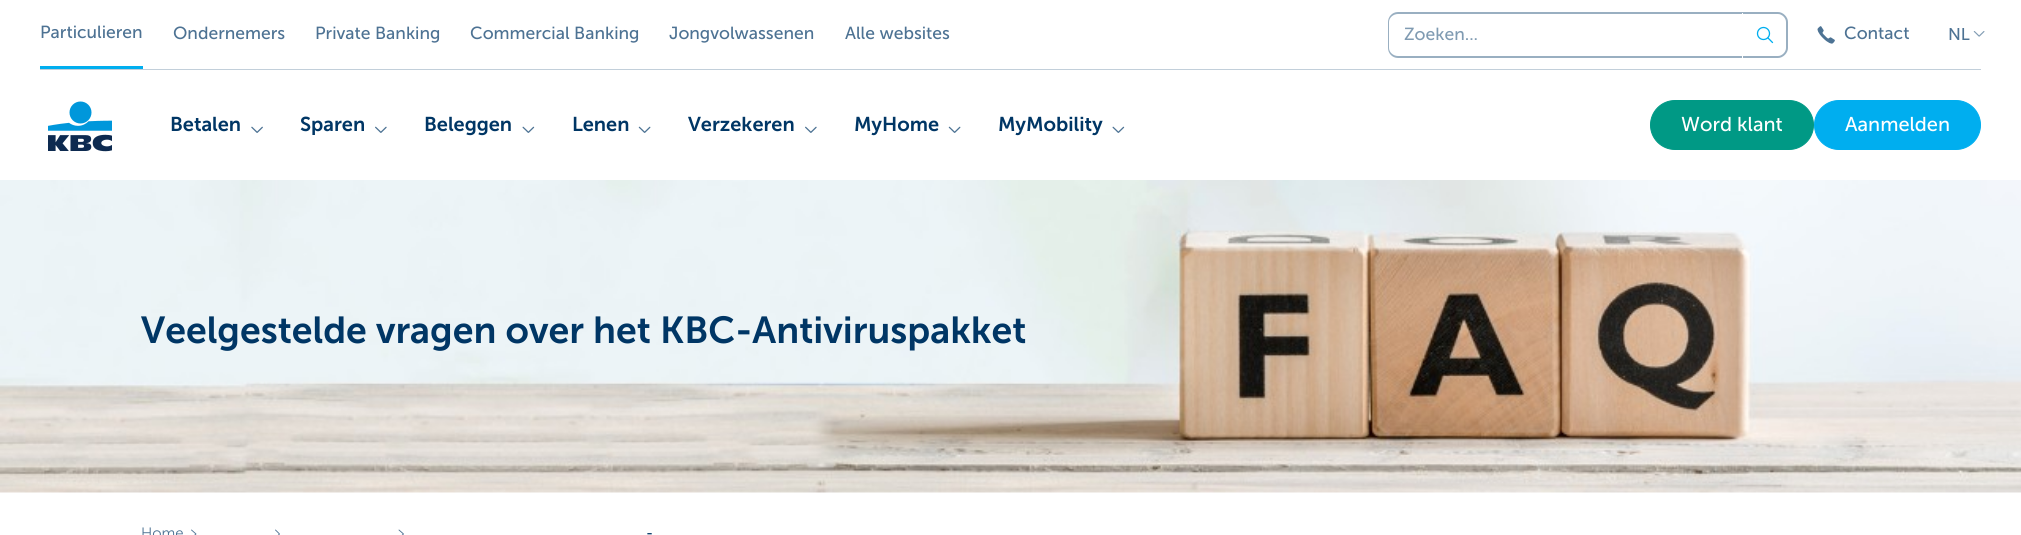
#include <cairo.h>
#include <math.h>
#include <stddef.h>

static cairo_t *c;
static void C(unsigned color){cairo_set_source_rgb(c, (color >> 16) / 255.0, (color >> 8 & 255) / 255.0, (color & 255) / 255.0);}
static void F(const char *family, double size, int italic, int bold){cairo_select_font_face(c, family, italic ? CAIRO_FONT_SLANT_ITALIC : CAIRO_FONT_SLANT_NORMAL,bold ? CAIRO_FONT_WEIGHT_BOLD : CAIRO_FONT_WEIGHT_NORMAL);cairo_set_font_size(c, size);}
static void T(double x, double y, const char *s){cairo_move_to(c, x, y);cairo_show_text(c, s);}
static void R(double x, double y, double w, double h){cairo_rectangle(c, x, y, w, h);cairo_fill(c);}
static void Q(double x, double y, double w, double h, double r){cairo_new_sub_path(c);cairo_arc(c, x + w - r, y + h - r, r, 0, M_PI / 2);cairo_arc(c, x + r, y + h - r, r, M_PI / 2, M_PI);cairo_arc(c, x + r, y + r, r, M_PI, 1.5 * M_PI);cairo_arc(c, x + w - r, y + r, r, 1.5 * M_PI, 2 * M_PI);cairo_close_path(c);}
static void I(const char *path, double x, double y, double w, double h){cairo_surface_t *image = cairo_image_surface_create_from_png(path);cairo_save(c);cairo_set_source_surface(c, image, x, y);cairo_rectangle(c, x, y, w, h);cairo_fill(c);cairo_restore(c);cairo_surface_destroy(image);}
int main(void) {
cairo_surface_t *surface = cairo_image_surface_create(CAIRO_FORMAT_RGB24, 2021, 535);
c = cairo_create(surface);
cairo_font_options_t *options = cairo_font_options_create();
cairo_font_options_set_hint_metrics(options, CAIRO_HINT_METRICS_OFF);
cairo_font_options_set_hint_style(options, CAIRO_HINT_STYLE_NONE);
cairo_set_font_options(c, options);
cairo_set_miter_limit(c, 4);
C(0xffffff);
cairo_paint(c);
C(0xc2cfda);
R(40,69,1941,1);
C(0x00aeef);
R(40,66,103,3);
F("Museo Sans",17.5,0,0);
C(0x4d7293);
T(40,38,"Particulieren");
T(173,39,"Ondernemers");
T(315,39,"Private Banking");
T(470,39,"Commercial Banking");
T(669,39,"Jongvolwassenen");
T(845,39,"Alle websites");
C(0x99afc1);
cairo_set_fill_rule(c,CAIRO_FILL_RULE_EVEN_ODD);
cairo_new_path(c);
cairo_move_to(c,1742,12);
cairo_line_to(c,1778,12);
cairo_curve_to(c,1783,12,1788,17,1788,22);
cairo_line_to(c,1788,48);
cairo_curve_to(c,1788,53,1783,58,1778,58);
cairo_line_to(c,1742,58);
cairo_close_path(c);
cairo_move_to(c,1742,14);
cairo_line_to(c,1778,14);
cairo_curve_to(c,1782,14,1786,18,1786,22);
cairo_line_to(c,1786,48);
cairo_curve_to(c,1786,52,1782,56,1778,56);
cairo_line_to(c,1742,56);
cairo_close_path(c);
cairo_fill(c);
C(0xffffff);
cairo_new_path(c);
cairo_move_to(c,1398,13);
cairo_line_to(c,1743,13);
cairo_line_to(c,1743,58);
cairo_line_to(c,1398,58);
cairo_curve_to(c,1392.5,58,1388,53.5,1388,48);
cairo_line_to(c,1388,23);
cairo_curve_to(c,1388,17.5,1392.5,13,1398,13);
cairo_close_path(c);
cairo_fill(c);
C(0x99afc1);
cairo_new_path(c);
cairo_move_to(c,1398,12);
cairo_line_to(c,1742,12);
cairo_line_to(c,1742,58);
cairo_line_to(c,1398,58);
cairo_curve_to(c,1392,58,1388,53,1388,48);
cairo_line_to(c,1388,22);
cairo_curve_to(c,1388,17,1392,12,1398,12);
cairo_close_path(c);
cairo_move_to(c,1398,14);
cairo_line_to(c,1742,14);
cairo_line_to(c,1742,56);
cairo_line_to(c,1398,56);
cairo_curve_to(c,1393,56,1389,52,1389,48);
cairo_line_to(c,1389,22);
cairo_curve_to(c,1389,18,1393,14,1398,14);
cairo_close_path(c);
cairo_fill(c);
C(0x809bb2);
T(1404,40,"Zoeken...");
cairo_new_path(c);
cairo_move_to(c,1772.5,42.5);
cairo_line_to(c,1768,38);
C(0x00aeef);
cairo_set_line_width(c,1.3);
cairo_set_line_cap(c,CAIRO_LINE_CAP_ROUND);
cairo_set_line_join(c,CAIRO_LINE_JOIN_ROUND);
cairo_stroke(c);
cairo_arc(c,1763.5,33.5,6,0,2 * M_PI);
cairo_set_line_cap(c,CAIRO_LINE_CAP_BUTT);
cairo_set_line_join(c,CAIRO_LINE_JOIN_MITER);
cairo_stroke(c);
I("1.png",1817,26,18,18);
C(0x4d7293);
T(1844,39,"Contact");
F("Museo Sans",17,0,0);
T(1948,40,"NL");
I("2.png",1973,31,12,6);
I("3.png",48,101,64,51);
F("Museo Sans SemiBold",20,0,0);
C(0x003665);
T(170,131,"Betalen");
I("4.png",251,126,12,7);
T(300,131,"Sparen");
I("5.png",375,126,12,7);
T(424,131,"Beleggen");
I("6.png",522,126,13,7);
T(572,131,"Lenen");
I("7.png",638,126,13,7);
T(688,131,"Verzekeren");
I("5.png",805,126,12,7);
T(854,131,"MyHome");
I("7.png",948,126,13,7);
T(998,131,"MyMobility");
I("6.png",1112,126,13,7);
C(0x009985);
Q(1650.5,100.5,163,49,24.5);
cairo_fill_preserve(c);
cairo_set_line_width(c,1);
cairo_stroke(c);
F("Museo Sans",20,0,0);
C(0xffffff);
T(1681,131,"Word klant");
C(0x00aeef);
Q(1814.5,100.5,166,49,24.5);
cairo_fill_preserve(c);
cairo_stroke(c);
C(0xffffff);
T(1845,131,"Aanmelden");
I("8.png",0,180,2021,313);
F("Museo Sans SemiBold",37.5,0,0);
C(0x003665);
T(141,343,"Veelgestelde vragen over het KBC-Antiviruspakket");
F("Museo Sans Light",15,0,0);
C(0x4d7293);
T(141,538,"Home");
cairo_new_path(c);
cairo_move_to(c,191.5,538);
cairo_line_to(c,196,534);
cairo_line_to(c,191.5,530);
cairo_set_line_width(c,.9);
cairo_set_line_cap(c,CAIRO_LINE_CAP_ROUND);
cairo_set_line_join(c,CAIRO_LINE_JOIN_ROUND);
cairo_stroke(c);
cairo_new_path(c);
cairo_move_to(c,275.5,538);
cairo_line_to(c,279.5,534);
cairo_line_to(c,275.5,530);
cairo_stroke(c);
cairo_new_path(c);
cairo_move_to(c,399,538);
cairo_line_to(c,403.5,534);
cairo_line_to(c,399,530);
cairo_stroke(c);
F("Museo Sans",15,0,0);
C(0x003665);
T(646,538,"-");
cairo_surface_write_to_png(surface, "o.png");
cairo_font_options_destroy(options);
cairo_destroy(c);
cairo_surface_destroy(surface);
return 0;
}
